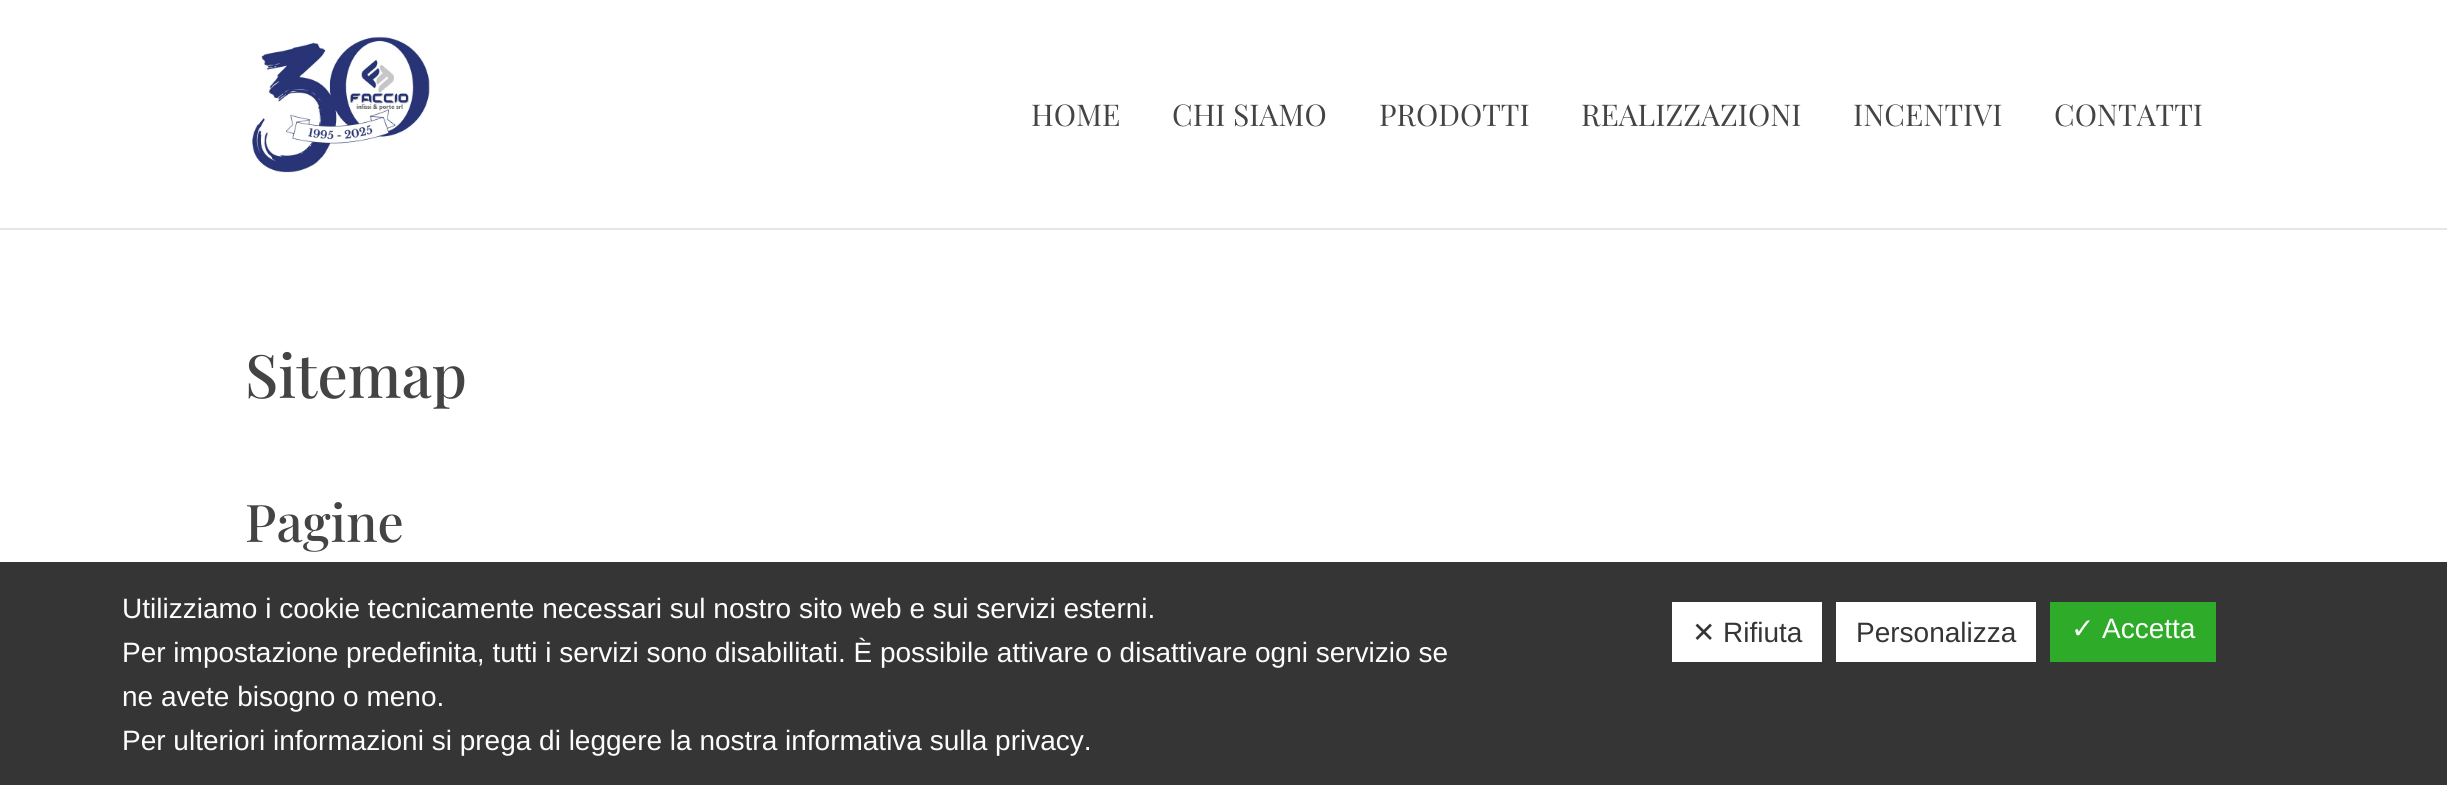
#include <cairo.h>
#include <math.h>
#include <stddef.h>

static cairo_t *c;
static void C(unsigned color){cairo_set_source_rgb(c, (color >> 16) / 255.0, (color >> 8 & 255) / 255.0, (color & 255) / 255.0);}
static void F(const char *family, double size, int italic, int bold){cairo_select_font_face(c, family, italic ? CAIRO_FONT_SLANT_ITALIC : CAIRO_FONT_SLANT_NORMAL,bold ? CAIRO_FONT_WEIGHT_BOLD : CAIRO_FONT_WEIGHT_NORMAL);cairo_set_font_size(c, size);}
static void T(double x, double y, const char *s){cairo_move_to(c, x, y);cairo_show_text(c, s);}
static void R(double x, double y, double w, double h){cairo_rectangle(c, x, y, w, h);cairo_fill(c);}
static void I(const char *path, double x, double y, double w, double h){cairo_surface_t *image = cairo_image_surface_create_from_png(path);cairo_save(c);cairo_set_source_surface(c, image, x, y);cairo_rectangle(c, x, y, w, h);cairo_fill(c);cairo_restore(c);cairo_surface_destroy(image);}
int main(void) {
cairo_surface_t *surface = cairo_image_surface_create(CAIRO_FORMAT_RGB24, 2447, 785);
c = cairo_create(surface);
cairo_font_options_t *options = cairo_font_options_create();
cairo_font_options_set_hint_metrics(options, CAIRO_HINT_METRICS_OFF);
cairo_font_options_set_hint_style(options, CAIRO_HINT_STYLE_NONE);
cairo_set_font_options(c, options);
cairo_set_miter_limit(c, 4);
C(0xffffff);
cairo_paint(c);
C(0x353535);
R(0,562,2447,223);
C(0xe6e6e6);
R(0,228,2447,2);
I("1.png",252,36,180,137);
F("Playfair Display",30,0,0);
C(0x444444);
T(1031,126,"HOME");
T(1172,126,"CHI SIAMO");
T(1379,126,"PRODOTTI");
T(1581,126,"REALIZZAZIONI");
T(1853,126,"INCENTIVI");
T(2054,126,"CONTATTI");
F("Playfair Display Medium",60,0,0);
T(245,398,"Sitemap");
F("Playfair Display Medium",52,0,0);
T(245,542,"Pagine");
F("Liberation Sans",28,0,0);
C(0xfdfdfd);
T(122,618,"Utilizziamo i cookie tecnicamente necessari sul nostro sito web e sui servizi esterni.");
T(122,662,"Per impostazione predefinita, tutti i servizi sono disabilitati. È possibile attivare o disattivare ogni servizio se");
T(122,706,"ne avete bisogno o meno.");
T(122,750,"Per ulteriori informazioni si prega di leggere la nostra informativa sulla privacy.");
C(0xffffff);
R(1672,602,150,60);
F("DejaVu Sans",28,0,0);
C(0x353535);
T(1692,642,"✕");
F("Liberation Sans",28,0,0);
T(1723,642,"Rifiuta");
C(0xffffff);
R(1836,602,200,60);
C(0x353535);
T(1856,642,"Personalizza");
C(0x2eab29);
R(2050,602,166,60);
F("DejaVu Sans",28,0,0);
C(0xfdfdfd);
T(2071,638,"✓");
F("Liberation Sans",28,0,0);
T(2102,638,"Accetta");
cairo_surface_write_to_png(surface, "o.png");
cairo_font_options_destroy(options);
cairo_destroy(c);
cairo_surface_destroy(surface);
return 0;
}
